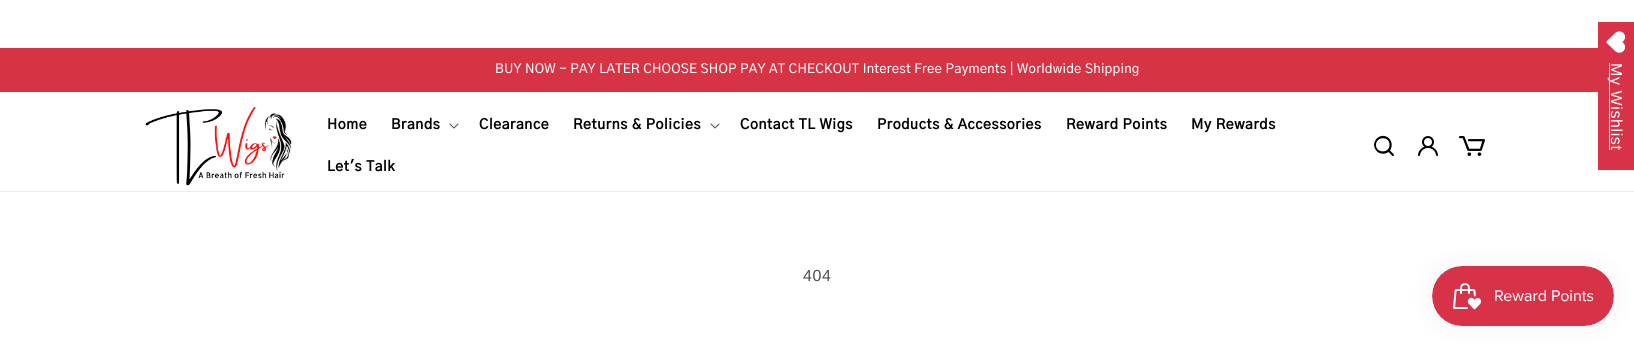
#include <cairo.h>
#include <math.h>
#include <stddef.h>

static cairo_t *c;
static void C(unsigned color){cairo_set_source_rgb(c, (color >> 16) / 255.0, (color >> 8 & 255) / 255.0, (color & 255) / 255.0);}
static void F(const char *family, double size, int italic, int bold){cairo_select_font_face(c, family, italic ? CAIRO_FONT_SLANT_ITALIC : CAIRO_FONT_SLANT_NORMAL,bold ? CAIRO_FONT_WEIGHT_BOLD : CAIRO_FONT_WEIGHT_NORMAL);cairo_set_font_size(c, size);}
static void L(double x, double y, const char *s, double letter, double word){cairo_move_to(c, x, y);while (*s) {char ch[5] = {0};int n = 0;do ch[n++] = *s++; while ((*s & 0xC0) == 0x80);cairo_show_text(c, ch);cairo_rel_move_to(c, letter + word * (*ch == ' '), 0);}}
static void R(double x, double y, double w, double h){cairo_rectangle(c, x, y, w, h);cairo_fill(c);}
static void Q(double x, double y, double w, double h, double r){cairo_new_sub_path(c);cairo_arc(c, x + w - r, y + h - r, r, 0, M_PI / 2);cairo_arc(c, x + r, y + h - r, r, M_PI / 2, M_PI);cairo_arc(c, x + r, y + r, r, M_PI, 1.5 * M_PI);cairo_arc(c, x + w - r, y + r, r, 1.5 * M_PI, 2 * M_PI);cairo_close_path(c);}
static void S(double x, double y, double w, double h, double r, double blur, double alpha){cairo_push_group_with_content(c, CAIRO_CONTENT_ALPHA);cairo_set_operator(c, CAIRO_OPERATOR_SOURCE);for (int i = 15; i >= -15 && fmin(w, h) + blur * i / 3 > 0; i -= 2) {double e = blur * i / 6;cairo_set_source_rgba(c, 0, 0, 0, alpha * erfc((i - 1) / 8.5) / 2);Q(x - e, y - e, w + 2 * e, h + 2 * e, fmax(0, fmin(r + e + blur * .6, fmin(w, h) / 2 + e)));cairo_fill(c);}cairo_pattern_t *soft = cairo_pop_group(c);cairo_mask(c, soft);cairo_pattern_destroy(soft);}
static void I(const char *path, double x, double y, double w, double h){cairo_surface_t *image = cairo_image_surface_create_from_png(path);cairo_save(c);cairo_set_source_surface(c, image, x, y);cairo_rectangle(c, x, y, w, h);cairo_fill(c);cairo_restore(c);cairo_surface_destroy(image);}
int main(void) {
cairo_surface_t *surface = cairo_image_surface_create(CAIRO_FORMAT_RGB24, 1634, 344);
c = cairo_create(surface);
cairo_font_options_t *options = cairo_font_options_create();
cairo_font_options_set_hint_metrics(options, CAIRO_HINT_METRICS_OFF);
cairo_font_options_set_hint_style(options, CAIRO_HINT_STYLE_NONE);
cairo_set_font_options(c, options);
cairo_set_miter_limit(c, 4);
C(0xffffff);
cairo_paint(c);
C(0xd63345);
R(0,48,1598,44);
F("Gothic A1 Medium",13,0,0);
C(0xffffff);
L(495,73,"BUY NOW - PAY LATER CHOOSE SHOP PAY AT CHECKOUT Interest Free Payments | Worldwide Shipping",.2,0);
C(0xd83248);
R(1598,22,36,148);
I("1.png",1606,31,20,22);
C(0xffffff);
R(1609,63,1,87);
F("Arimo",16,0,0);
cairo_save(c);
cairo_translate(c,1611,63);
cairo_rotate(c,90 * M_PI / 180);
L(0,0,"My Wishlist",.6,0);
cairo_restore(c);
C(0xececec);
R(0,191,1634,1);
I("2.png",145,107,147,79);
F("Gothic A1",14,0,1);
C(0x000000);
L(327,129,"Home",.6,0);
L(391,129,"Brands",.6,0);
I("3.png",449,123,10,6);
L(479,129,"Clearance",.6,0);
L(573,129,"Returns & Policies",.6,0);
I("3.png",710,123,10,6);
L(740,129,"Contact TL Wigs",.6,0);
L(877,129,"Products & Accessories",.6,0);
L(1066,129,"Reward Points",.6,0);
L(1191,129,"My Rewards",.6,0);
L(327,171,"Let's Talk",.6,0);
cairo_new_path(c);
cairo_move_to(c,1393.5,154);
cairo_line_to(c,1390,150.5);
cairo_curve_to(c,1391.5,148.5,1392,145.5,1391.5,143);
cairo_curve_to(c,1391,141,1390,139,1388,137.5);
cairo_curve_to(c,1380,132,1370.5,141.5,1375.5,149.5);
cairo_curve_to(c,1378,154,1384,155,1388.5,152);
cairo_line_to(c,1392.5,156);
cairo_curve_to(c,1393.5,156.5,1394.5,155,1393.5,154);
cairo_close_path(c);
cairo_move_to(c,1376,145);
cairo_curve_to(c,1376,136,1390,136,1389.5,145);
cairo_curve_to(c,1389.5,153.5,1376,153.5,1376,145);
cairo_close_path(c);
cairo_fill(c);
I("4.png",1418,136,20,20);
I("5.png",1459,136,26,20);
F("Arimo",16,0,0);
C(0x4d4d4d);
L(803,281,"404",.6,0);
C(0x000000);
S(1432,266,182,60,30,12.5,.05);
I("6.png",1432,266,182,60);
cairo_surface_write_to_png(surface, "o.png");
cairo_font_options_destroy(options);
cairo_destroy(c);
cairo_surface_destroy(surface);
return 0;
}
